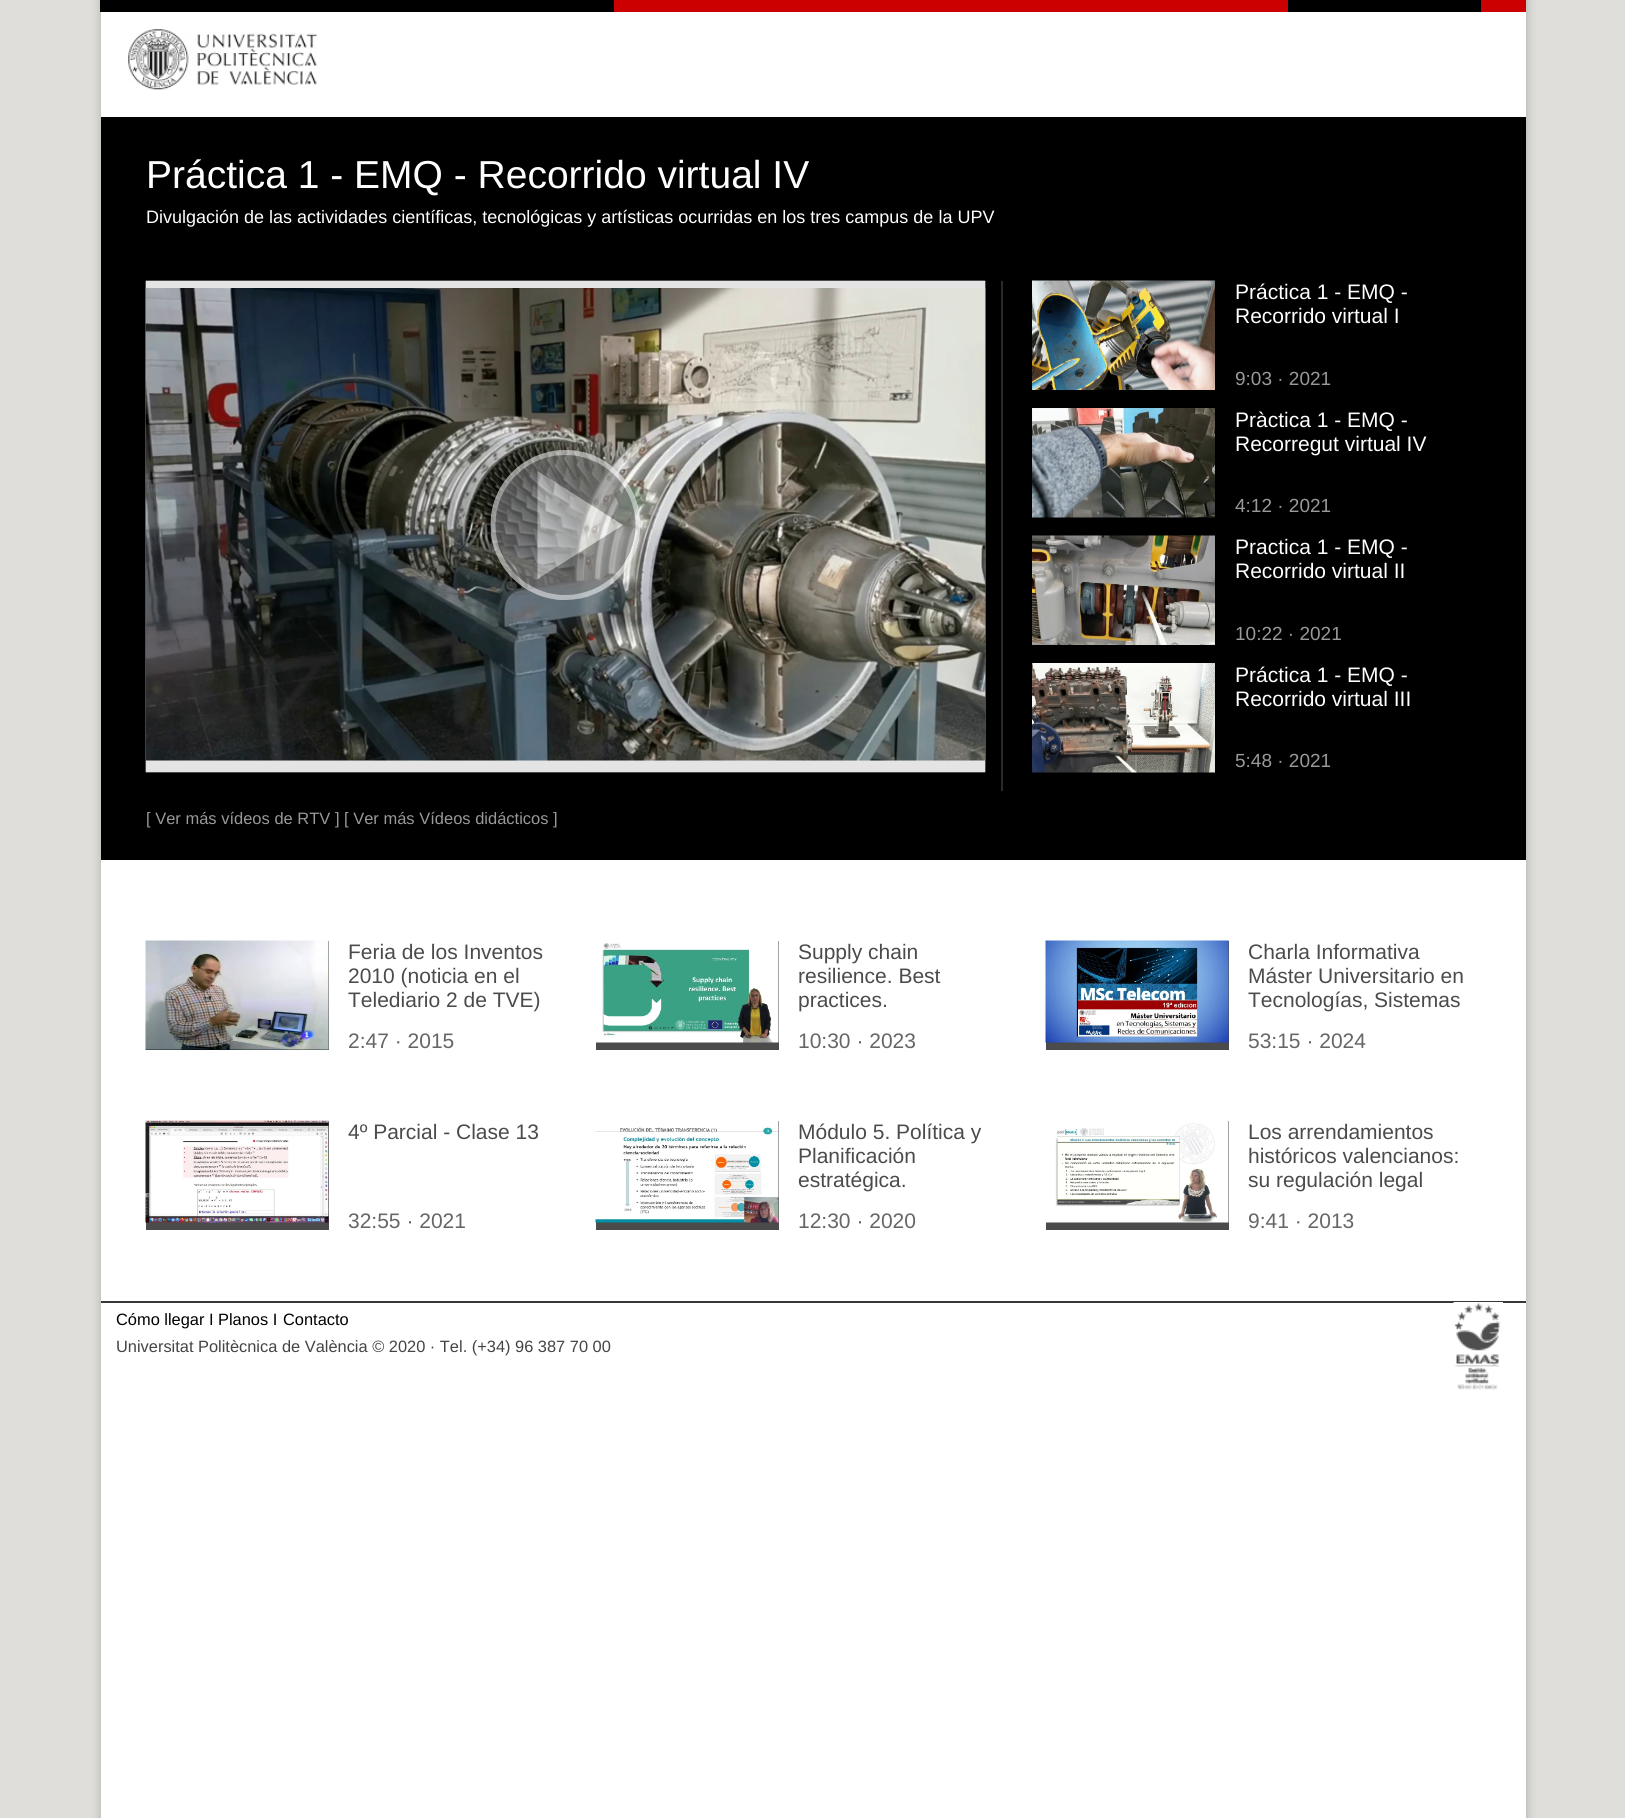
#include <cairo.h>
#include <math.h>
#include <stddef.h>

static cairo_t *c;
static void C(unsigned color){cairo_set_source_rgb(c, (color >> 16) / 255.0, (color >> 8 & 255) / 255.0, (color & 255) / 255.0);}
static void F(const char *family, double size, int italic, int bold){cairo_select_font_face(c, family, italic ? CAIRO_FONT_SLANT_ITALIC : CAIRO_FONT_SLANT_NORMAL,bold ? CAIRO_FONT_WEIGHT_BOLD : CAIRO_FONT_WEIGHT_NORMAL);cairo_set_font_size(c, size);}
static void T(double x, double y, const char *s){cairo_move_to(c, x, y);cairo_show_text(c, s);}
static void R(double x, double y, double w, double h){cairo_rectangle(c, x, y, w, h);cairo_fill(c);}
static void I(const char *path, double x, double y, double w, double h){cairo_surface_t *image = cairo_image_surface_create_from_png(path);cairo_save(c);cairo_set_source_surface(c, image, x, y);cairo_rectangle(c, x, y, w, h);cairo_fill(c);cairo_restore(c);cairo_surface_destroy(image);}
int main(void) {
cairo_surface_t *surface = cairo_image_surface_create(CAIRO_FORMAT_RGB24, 1625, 1818);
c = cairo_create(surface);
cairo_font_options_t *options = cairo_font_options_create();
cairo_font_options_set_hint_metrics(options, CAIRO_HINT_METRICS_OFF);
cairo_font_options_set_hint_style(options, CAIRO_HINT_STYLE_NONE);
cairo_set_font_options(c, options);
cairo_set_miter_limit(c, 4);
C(0xffffff);
cairo_paint(c);
I("1.png",0,0,1625,1818);
C(0xffffff);
R(101,12,1425,1806);
C(0xcc0000);
R(614,0,912,12);
C(0x000000);
R(100,0,514,12);
R(1288,0,193,12);
I("2.png",128,29,189,61);
R(101,117,1425,743);
F("Liberation Sans",39,0,0);
C(0xffffff);
T(146,188,"Práctica 1 - EMQ - Recorrido virtual IV");
F("Liberation Sans",18,0,0);
T(146,223,"Divulgación de las actividades científicas, tecnológicas y artísticas ocurridas en los tres campus de la UPV");
I("3.png",145,280,841,493);
F("Liberation Sans",16.5,0,0);
C(0x999999);
T(146,824,"[ Ver más vídeos de RTV ]");
T(344,824,"[ Ver más Vídeos didácticos ]");
C(0x2a2a2a);
R(1001,281,2,510);
I("4.png",1032,280,183,110);
F("Liberation Sans",21,0,0);
C(0xffffff);
T(1235,299,"Práctica 1 - EMQ -");
T(1235,323,"Recorrido virtual I");
F("Liberation Sans",19,0,0);
C(0x999999);
T(1235,385,"9:03 · 2021");
I("5.png",1032,408,183,110);
F("Liberation Sans",21,0,0);
C(0xffffff);
T(1235,427,"Pràctica 1 - EMQ -");
T(1235,451,"Recorregut virtual IV");
F("Liberation Sans",19,0,0);
C(0x999999);
T(1235,512,"4:12 · 2021");
I("6.png",1032,535,183,110);
F("Liberation Sans",21,0,0);
C(0xffffff);
T(1235,554,"Practica 1 - EMQ -");
T(1235,578,"Recorrido virtual II");
F("Liberation Sans",19,0,0);
C(0x999999);
T(1235,640,"10:22 · 2021");
I("7.png",1032,663,183,110);
F("Liberation Sans",21,0,0);
C(0xffffff);
T(1235,682,"Práctica 1 - EMQ -");
T(1235,706,"Recorrido virtual III");
F("Liberation Sans",19,0,0);
C(0x999999);
T(1235,767,"5:48 · 2021");
C(0x4b4b4b);
R(328,941,1,109);
I("8.png",145,940,184,110);
F("Liberation Sans",21,0,0);
T(348,959,"Feria de los Inventos");
T(348,983,"2010 (noticia en el");
T(348,1007,"Telediario 2 de TVE)");
C(0x666666);
T(348,1048,"2:47 · 2015");
C(0x4b4b4b);
R(596,941,183,109);
I("9.png",596,941,183,102);
T(798,959,"Supply chain");
T(798,983,"resilience. Best");
T(798,1007,"practices.");
C(0x666666);
T(798,1048,"10:30 · 2023");
C(0x4b4b4b);
R(1046,941,183,109);
I("10.png",1045,940,184,103);
T(1248,959,"Charla Informativa");
T(1248,983,"Máster Universitario en");
T(1248,1007,"Tecnologías, Sistemas");
C(0x666666);
T(1248,1048,"53:15 · 2024");
C(0x4b4b4b);
R(146,1121,183,109);
I("11.png",145,1120,184,103);
T(348,1139,"4º Parcial - Clase 13");
C(0x666666);
T(348,1228,"32:55 · 2021");
C(0x4b4b4b);
R(596,1121,183,109);
I("12.png",595,1121,184,102);
T(798,1139,"Módulo 5. Política y");
T(798,1163,"Planificación");
T(798,1187,"estratégica.");
C(0x666666);
T(798,1228,"12:30 · 2020");
C(0x4b4b4b);
R(1046,1121,183,109);
I("13.png",1046,1121,183,102);
T(1248,1139,"Los arrendamientos");
T(1248,1163,"históricos valencianos:");
T(1248,1187,"su regulación legal");
C(0x666666);
T(1248,1228,"9:41 · 2013");
C(0x373737);
R(101,1301,1425,2);
F("Liberation Sans",16.4,0,0);
C(0x000000);
T(116,1325,"Cómo llegar I");
T(218,1325,"Planos I");
T(283,1325,"Contacto");
C(0x444444);
T(116,1352,"Universitat Politècnica de València © 2020 · Tel. (+34) 96 387 70 00");
I("14.png",1453,1302,50,88);
cairo_surface_write_to_png(surface, "o.png");
cairo_font_options_destroy(options);
cairo_destroy(c);
cairo_surface_destroy(surface);
return 0;
}
